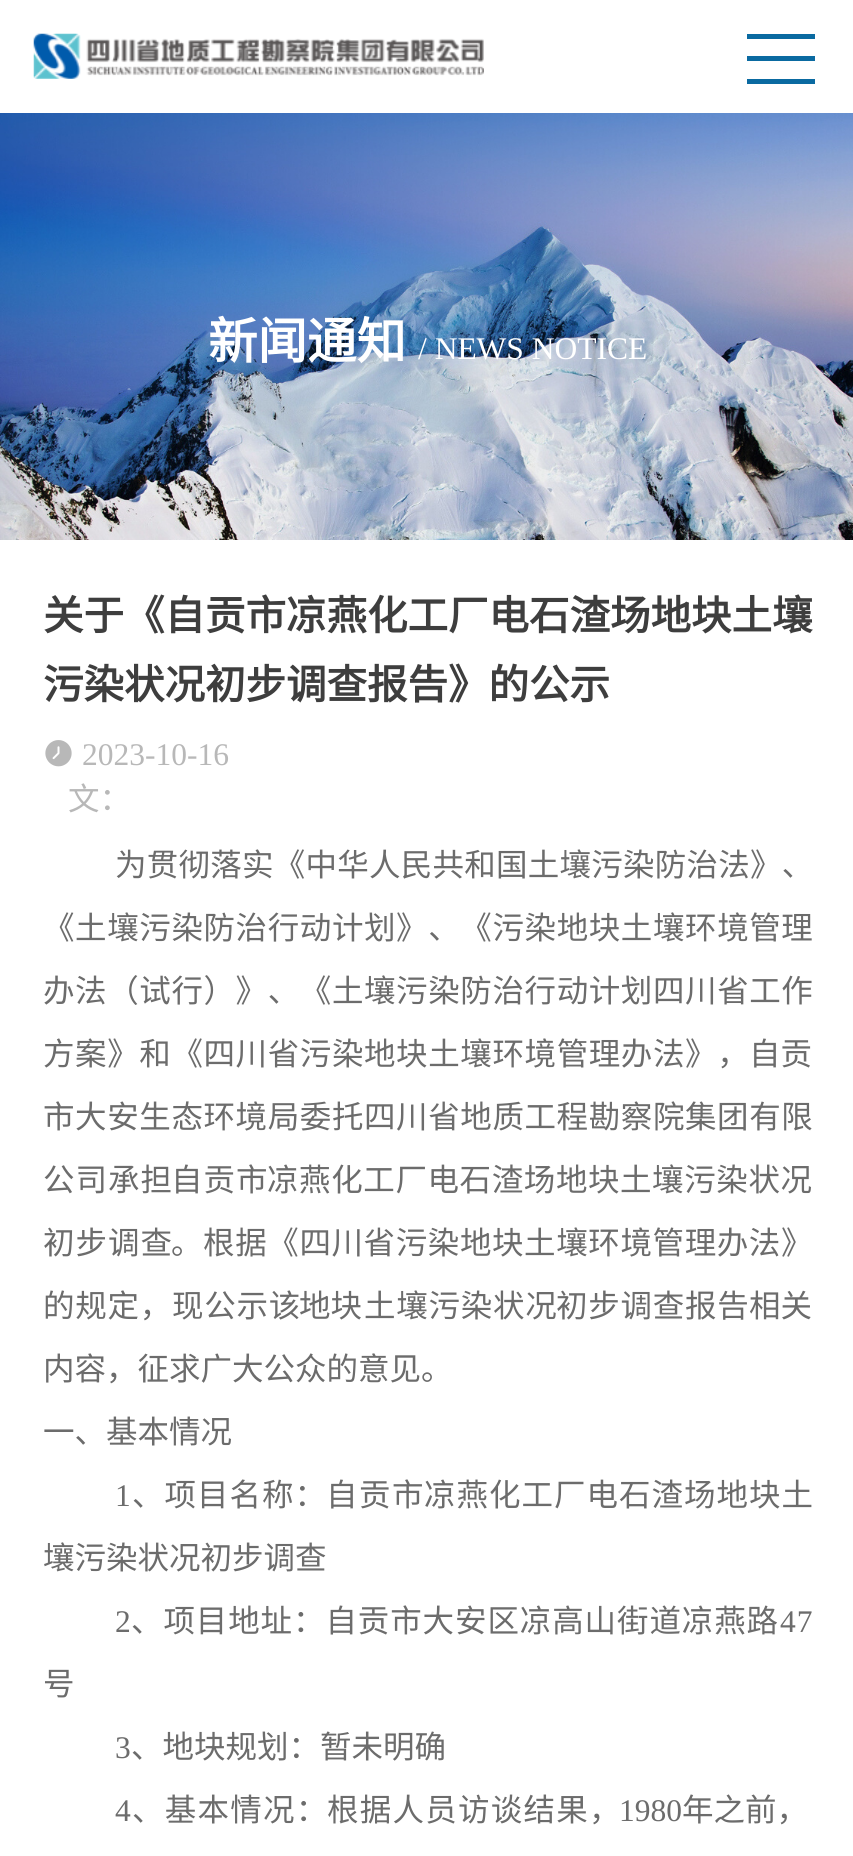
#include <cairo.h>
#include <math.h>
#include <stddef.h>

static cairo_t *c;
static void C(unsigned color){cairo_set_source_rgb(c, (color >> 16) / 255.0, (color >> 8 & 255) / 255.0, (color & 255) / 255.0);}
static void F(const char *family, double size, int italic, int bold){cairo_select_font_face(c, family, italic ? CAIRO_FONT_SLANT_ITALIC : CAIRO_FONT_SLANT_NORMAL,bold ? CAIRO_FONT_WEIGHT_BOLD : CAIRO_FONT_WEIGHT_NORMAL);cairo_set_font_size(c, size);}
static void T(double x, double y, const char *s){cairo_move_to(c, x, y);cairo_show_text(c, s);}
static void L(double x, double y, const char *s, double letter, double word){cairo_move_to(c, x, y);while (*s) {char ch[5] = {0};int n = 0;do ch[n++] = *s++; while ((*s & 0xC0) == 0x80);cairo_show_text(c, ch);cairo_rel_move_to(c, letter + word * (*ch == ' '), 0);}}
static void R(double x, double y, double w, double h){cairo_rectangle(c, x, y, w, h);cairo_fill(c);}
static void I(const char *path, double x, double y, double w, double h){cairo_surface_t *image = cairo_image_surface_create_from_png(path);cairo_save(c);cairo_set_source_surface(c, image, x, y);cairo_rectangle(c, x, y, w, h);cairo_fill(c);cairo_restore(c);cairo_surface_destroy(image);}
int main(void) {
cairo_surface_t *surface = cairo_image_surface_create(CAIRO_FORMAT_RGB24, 853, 1856);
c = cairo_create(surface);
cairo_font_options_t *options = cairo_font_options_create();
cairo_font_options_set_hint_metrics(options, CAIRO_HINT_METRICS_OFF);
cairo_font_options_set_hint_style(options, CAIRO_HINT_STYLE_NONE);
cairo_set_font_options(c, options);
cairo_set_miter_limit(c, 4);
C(0xffffff);
cairo_paint(c);
I("1.png",33,33,451,46);
C(0x0a6aa1);
R(747,34,68,5);
R(747,56,68,5);
R(747,79,68,5);
I("2.png",0,113,853,427);
F("Noto Sans CJK SC",49.5,0,1);
C(0xffffff);
T(208,359,"新闻通知");
F("Liberation Serif",31.5,0,0);
T(418,359,"/ NEWS NOTICE");
F("Noto Sans CJK SC",40.5,0,1);
C(0x3e3e3e);
T(43,630,"关于《自贡市凉燕化工厂电石渣场地块土壤");
T(43,699,"污染状况初步调查报告》的公示");
I("3.png",45,740,27,27);
F("Liberation Serif",31.5,0,0);
C(0xb8b8b8);
T(82,765,"2023-10-16");
F("Noto Sans CJK SC",31.5,0,0);
T(68,810,"文：");
C(0x6c6c6c);
L(115,876,"为贯彻落实《中华人民共和国土壤污染防治法》、",.25,0);
L(43,939,"《土壤污染防治行动计划》、《污染地块土壤环境管理",.6,0);
L(43,1002,"办法（试行）》、《土壤污染防治行动计划四川省工作",.6,0);
L(43,1065,"方案》和《四川省污染地块土壤环境管理办法》，",.6,0);
T(749,1065,"自贡");
L(43,1128,"市大安生态环境局委托",.6,0);
L(364,1128,"四川省地质工程勘察院集团有限",.6,0);
L(43,1191,"公司承担",1,0);
L(171,1191,"自贡市",1,0);
L(267,1191,"凉燕化工厂电石渣场地块",.6,0);
L(620,1191,"土壤污染状况",.6,0);
L(43,1254,"初步调查",1,0);
L(171,1254,"。根据《四川省污染地块土壤环境管理办法》",.6,0);
L(43,1317,"的规定，现公示该",.75,0);
T(299,1317,"地块");
L(364,1317,"土壤污染状况",.75,0);
L(556,1317,"初步调查报告",.75,0);
T(749,1317,"相关");
T(43,1380,"内容，征求广大公众的意见。");
T(43,1443,"一、基本情况");
F("Liberation Serif",31.5,0,0);
L(115,1506,"1",1,0);
F("Noto Sans CJK SC",31.5,0,0);
L(132,1506,"、项目名称：",1,0);
L(326,1506,"自贡市",1.5,0);
L(424,1506,"凉燕化工厂电石渣场地块土",1,0);
T(43,1569,"壤污染状况初步调查");
F("Liberation Serif",31.5,0,0);
L(115,1632,"2",.9,0);
F("Noto Sans CJK SC",31.5,0,0);
L(131,1632,"、项目地址：自贡市大安区凉高山街道凉燕路",.9,0);
F("Liberation Serif",31.5,0,0);
L(780,1632,"47",.9,0);
F("Noto Sans CJK SC",31.5,0,0);
T(43,1695,"号");
F("Liberation Serif",31.5,0,0);
T(115,1758,"3");
F("Noto Sans CJK SC",31.5,0,0);
T(131,1758,"、地块规划：暂未明确");
F("Liberation Serif",31.5,0,0);
L(115,1821,"4",1.25,0);
F("Noto Sans CJK SC",31.5,0,0);
L(132,1821,"、基本情况：",1.25,0);
L(327,1821,"根据人员访谈结果，",1.25,0);
F("Liberation Serif",31.5,0,0);
T(619,1821,"1980");
F("Noto Sans CJK SC",31.5,0,0);
T(682,1821,"年之前，");
cairo_surface_write_to_png(surface, "o.png");
cairo_font_options_destroy(options);
cairo_destroy(c);
cairo_surface_destroy(surface);
return 0;
}
